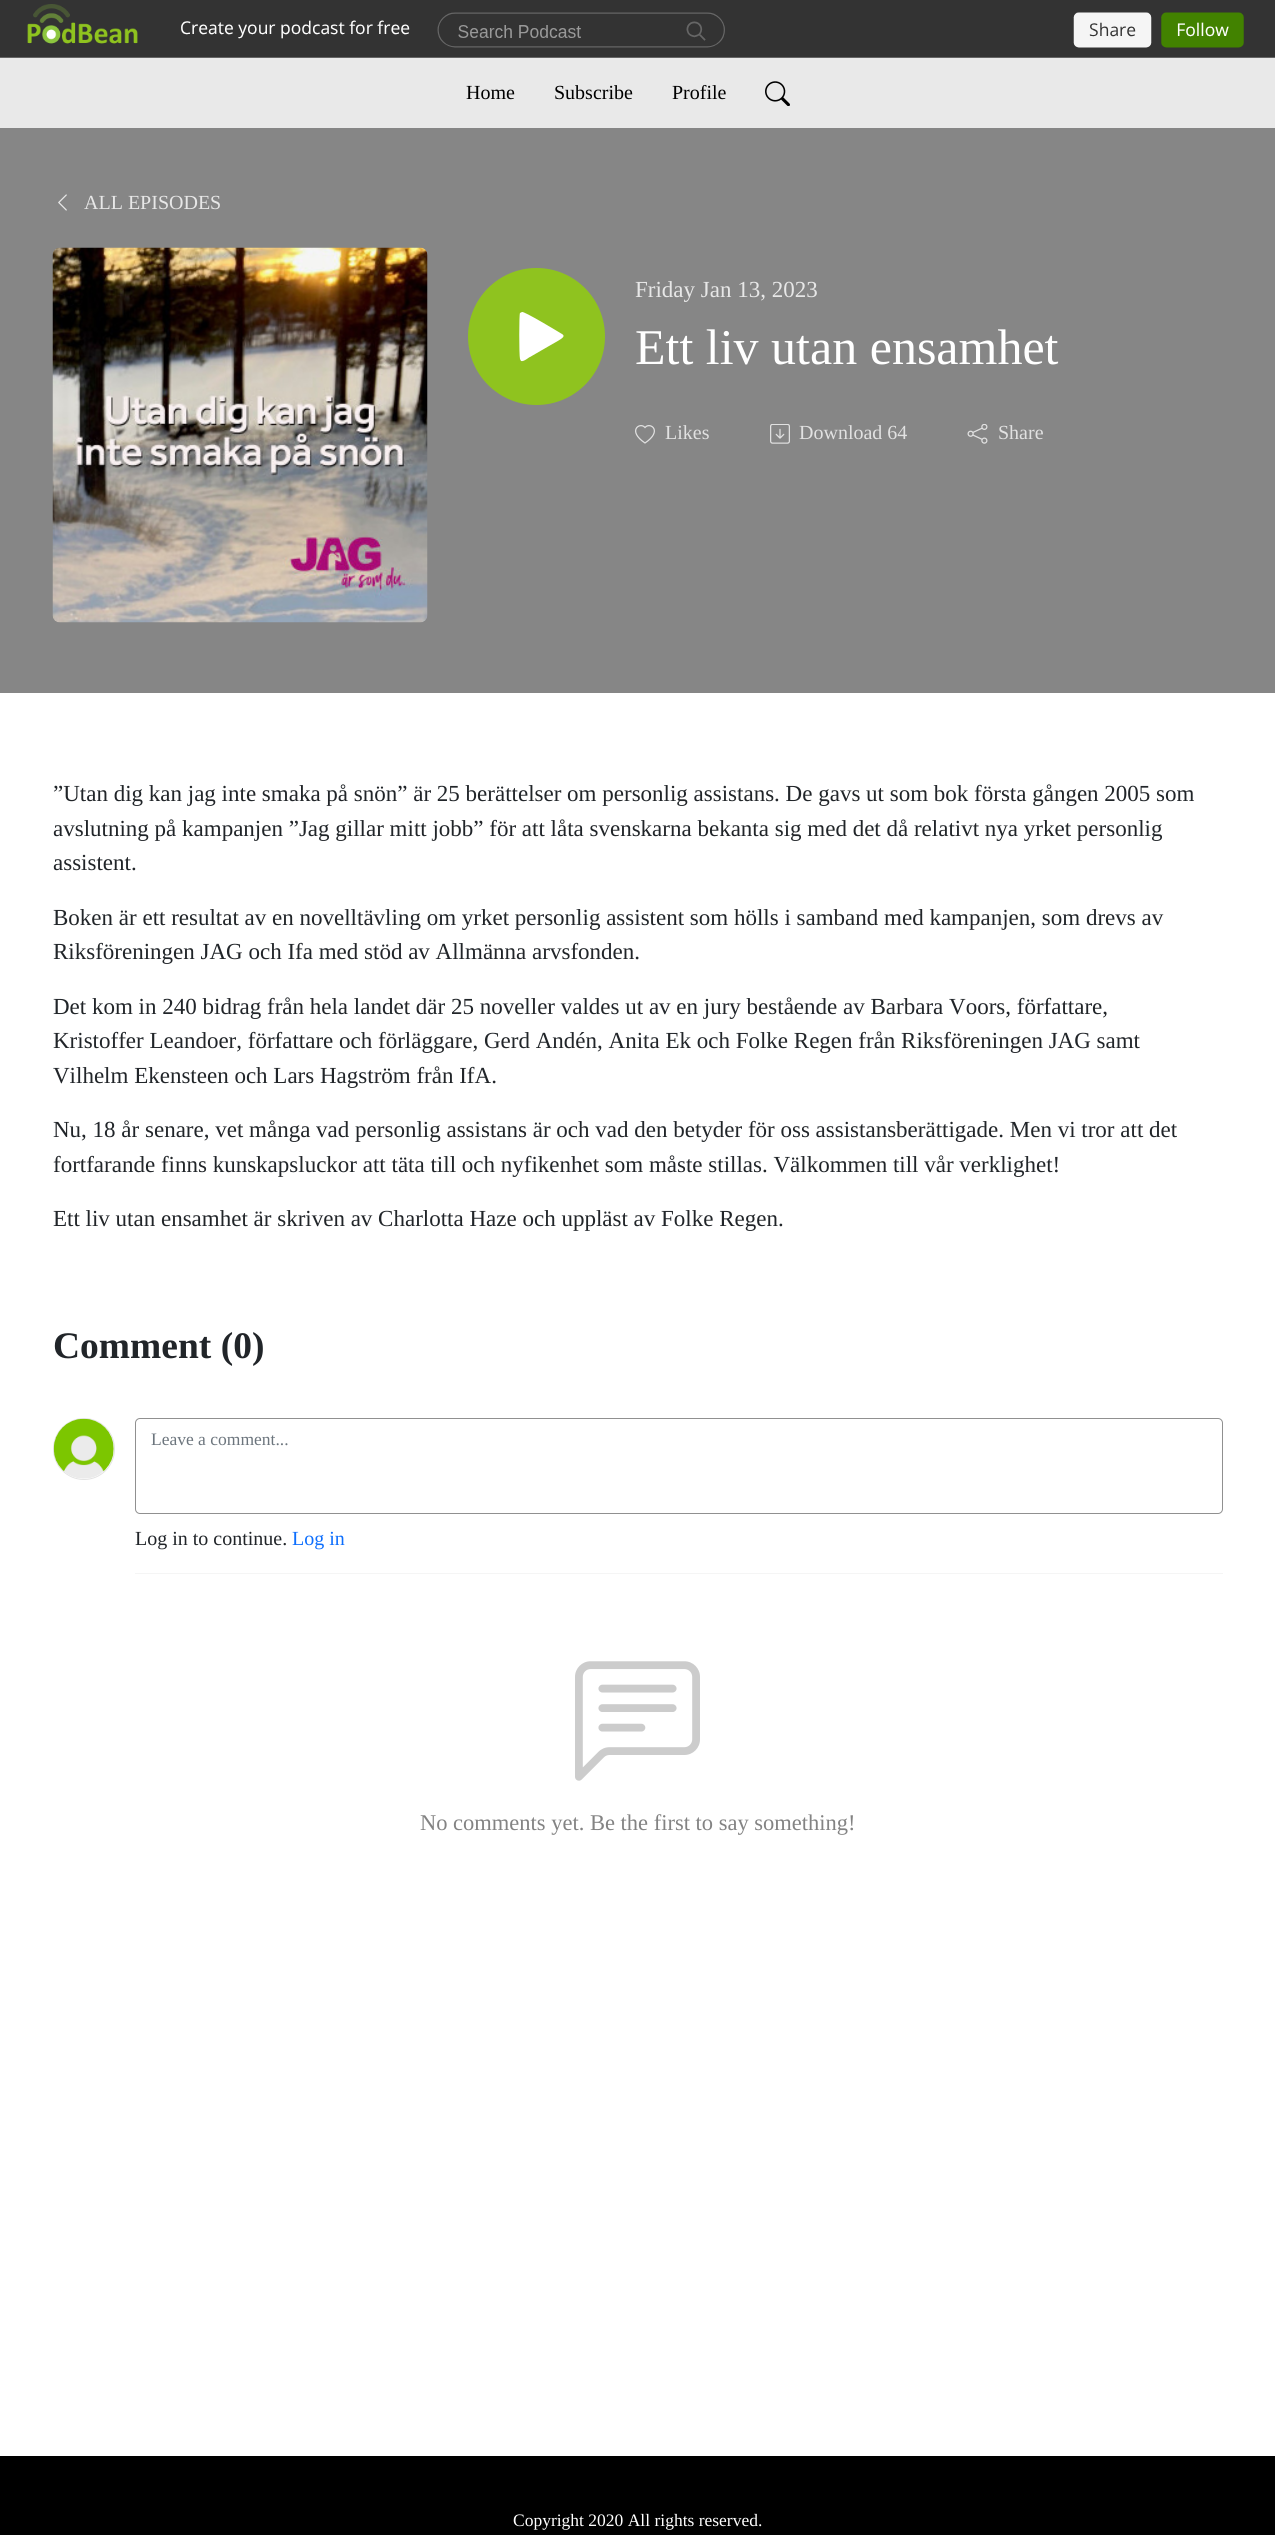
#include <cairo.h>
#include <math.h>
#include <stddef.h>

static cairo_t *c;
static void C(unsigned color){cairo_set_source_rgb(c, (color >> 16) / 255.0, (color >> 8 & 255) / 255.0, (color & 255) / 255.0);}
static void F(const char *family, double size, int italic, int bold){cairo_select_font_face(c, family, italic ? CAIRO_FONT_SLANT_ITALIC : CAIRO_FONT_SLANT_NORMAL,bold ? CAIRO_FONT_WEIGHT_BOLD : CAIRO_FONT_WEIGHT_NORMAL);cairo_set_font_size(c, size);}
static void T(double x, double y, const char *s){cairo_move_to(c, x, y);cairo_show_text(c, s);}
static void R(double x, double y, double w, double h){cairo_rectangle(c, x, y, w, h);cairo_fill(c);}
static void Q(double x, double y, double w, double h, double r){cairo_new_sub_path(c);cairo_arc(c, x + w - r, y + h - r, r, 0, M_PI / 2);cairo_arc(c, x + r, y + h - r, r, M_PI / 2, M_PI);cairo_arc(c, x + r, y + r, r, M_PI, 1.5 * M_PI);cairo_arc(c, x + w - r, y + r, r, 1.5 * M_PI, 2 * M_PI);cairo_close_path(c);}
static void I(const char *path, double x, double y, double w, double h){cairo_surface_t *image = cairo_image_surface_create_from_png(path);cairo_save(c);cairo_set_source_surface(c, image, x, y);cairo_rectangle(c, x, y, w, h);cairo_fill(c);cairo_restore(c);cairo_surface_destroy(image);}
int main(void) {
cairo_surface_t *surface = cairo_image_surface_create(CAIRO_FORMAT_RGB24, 1275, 2535);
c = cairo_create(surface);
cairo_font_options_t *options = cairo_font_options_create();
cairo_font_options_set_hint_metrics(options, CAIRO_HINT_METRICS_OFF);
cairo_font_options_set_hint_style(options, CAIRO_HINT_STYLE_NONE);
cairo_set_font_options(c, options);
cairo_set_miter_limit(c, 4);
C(0xffffff);
cairo_paint(c);
C(0x333333);
R(0,0,1275,4);
I("1.png",0,4,1275,54);
C(0xe9e9e9);
R(0,58,1275,70);
F("Liberation Serif",20,0,0);
C(0x000000);
T(466,99,"Home");
T(554,99,"Subscribe");
T(672,99,"Profile");
I("2.png",765,81,25,25);
C(0x868686);
R(0,128,1275,565);
I("3.png",58,194,9,17);
C(0xe7e7e7);
T(84,209,"ALL EPISODES");
I("4.png",52,247,376,376);
C(0x8fc31f);
cairo_arc(c,536.5,336.5,68.5,0,2 * M_PI);
cairo_fill(c);
C(0xffffff);
cairo_new_path(c);
cairo_move_to(c,562,334);
cairo_curve_to(c,557,331,524,311,522,312);
cairo_line_to(c,520,313);
cairo_curve_to(c,519,314,519,355,520,359);
cairo_line_to(c,521,361);
cairo_curve_to(c,524,362,529,357,530,357);
cairo_line_to(c,549,346);
cairo_curve_to(c,559,340,567,337,562,334);
cairo_close_path(c);
cairo_fill(c);
F("Liberation Serif",23,0,0);
C(0xe7e7e7);
T(635,297,"Friday Jan 13, 2023");
F("Liberation Serif",50,0,0);
C(0xffffff);
T(635,364,"Ett liv utan ensamhet");
I("5.png",635,425,20,19);
F("Liberation Serif",20,0,0);
C(0xe1e1e1);
T(665,439,"Likes");
I("6.png",770,424,20,20);
T(799,439,"Download 64");
I("7.png",967,424,21,20);
T(998,439,"Share");
F("Liberation Serif",23,0,0);
C(0x212529);
T(53,801,"”Utan dig kan jag inte smaka på snön” är 25 berättelser om personlig assistans. De gavs ut som bok första gången 2005 som");
T(53,836,"avslutning på kampanjen ”Jag gillar mitt jobb” för att låta svenskarna bekanta sig med det då relativt nya yrket personlig");
T(53,870,"assistent.");
T(53,925,"Boken är ett resultat av en novelltävling om yrket personlig assistent som hölls i samband med kampanjen, som drevs av");
T(53,959,"Riksföreningen JAG och Ifa med stöd av Allmänna arvsfonden.");
T(53,1014,"Det kom in 240 bidrag från hela landet där 25 noveller valdes ut av en jury bestående av Barbara Voors, författare,");
T(53,1048,"Kristoffer Leandoer, författare och förläggare, Gerd Andén, Anita Ek och Folke Regen från Riksföreningen JAG samt");
T(53,1083,"Vilhelm Ekensteen och Lars Hagström från IfA.");
T(53,1137,"Nu, 18 år senare, vet många vad personlig assistans är och vad den betyder för oss assistansberättigade. Men vi tror att det");
T(53,1172,"fortfarande finns kunskapsluckor att täta till och nyfikenhet som måste stillas. Välkommen till vår verklighet!");
T(53,1226,"Ett liv utan ensamhet är skriven av Charlotta Haze och uppläst av Folke Regen.");
F("Liberation Serif",37.5,0,1);
T(53,1358,"Comment (0)");
cairo_new_path(c);
cairo_arc(c,84,1449,30.5,0,2 * M_PI);
C(0xe3e3e3);
cairo_set_line_width(c,1);
cairo_stroke(c);
I("8.png",53,1418,61,61);
C(0xf5f5f5);
R(135,1573,1088,1);
Q(135.5,1418.5,1087,95,4.5);
C(0x909090);
cairo_stroke(c);
F("Liberation Serif",17.5,0,0);
C(0x6c757d);
T(151,1445,"Leave a comment...");
F("Liberation Serif",20,0,0);
C(0x212529);
T(135,1545,"Log in to continue.");
C(0x0d6efd);
T(292,1545,"Log in");
I("9.png",575,1661,125,120);
F("Liberation Serif",22.5,0,0);
C(0x838383);
T(420,1830,"No comments yet. Be the first to say something!");
C(0x000000);
R(0,2456,1275,79);
F("Liberation Serif",17.5,0,0);
C(0xffffff);
T(513,2526,"Copyright 2020 All rights reserved.");
cairo_surface_write_to_png(surface, "o.png");
cairo_font_options_destroy(options);
cairo_destroy(c);
cairo_surface_destroy(surface);
return 0;
}
